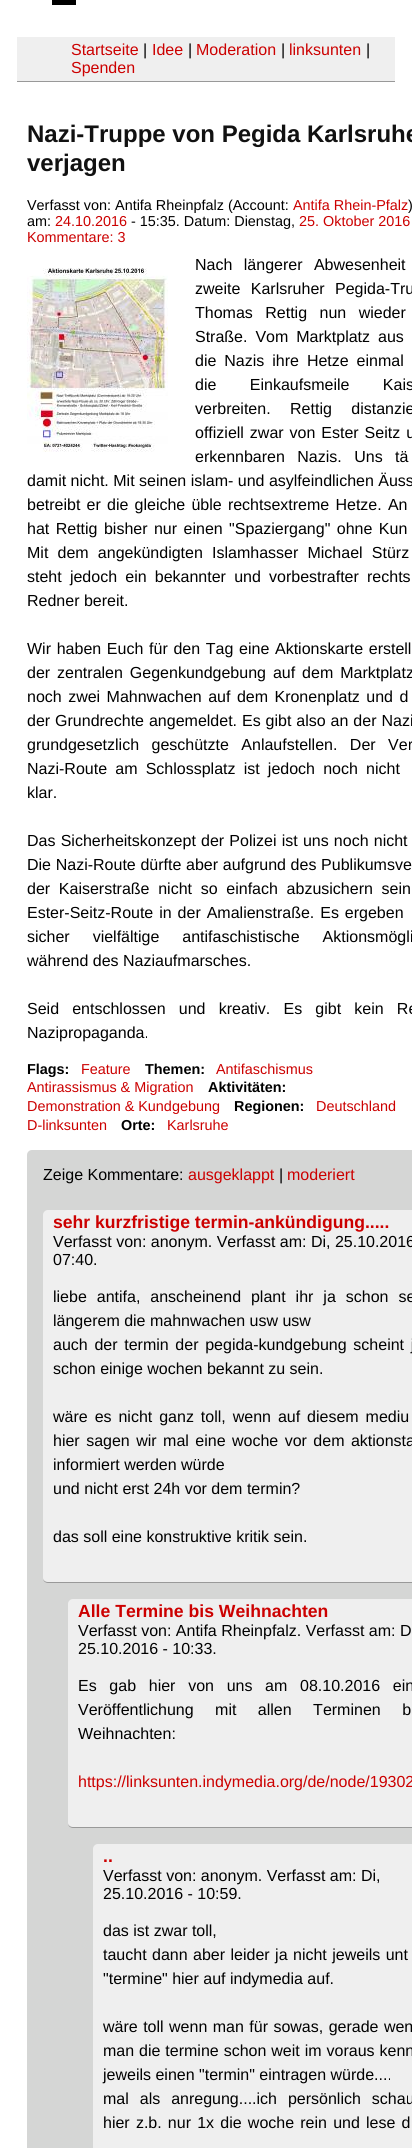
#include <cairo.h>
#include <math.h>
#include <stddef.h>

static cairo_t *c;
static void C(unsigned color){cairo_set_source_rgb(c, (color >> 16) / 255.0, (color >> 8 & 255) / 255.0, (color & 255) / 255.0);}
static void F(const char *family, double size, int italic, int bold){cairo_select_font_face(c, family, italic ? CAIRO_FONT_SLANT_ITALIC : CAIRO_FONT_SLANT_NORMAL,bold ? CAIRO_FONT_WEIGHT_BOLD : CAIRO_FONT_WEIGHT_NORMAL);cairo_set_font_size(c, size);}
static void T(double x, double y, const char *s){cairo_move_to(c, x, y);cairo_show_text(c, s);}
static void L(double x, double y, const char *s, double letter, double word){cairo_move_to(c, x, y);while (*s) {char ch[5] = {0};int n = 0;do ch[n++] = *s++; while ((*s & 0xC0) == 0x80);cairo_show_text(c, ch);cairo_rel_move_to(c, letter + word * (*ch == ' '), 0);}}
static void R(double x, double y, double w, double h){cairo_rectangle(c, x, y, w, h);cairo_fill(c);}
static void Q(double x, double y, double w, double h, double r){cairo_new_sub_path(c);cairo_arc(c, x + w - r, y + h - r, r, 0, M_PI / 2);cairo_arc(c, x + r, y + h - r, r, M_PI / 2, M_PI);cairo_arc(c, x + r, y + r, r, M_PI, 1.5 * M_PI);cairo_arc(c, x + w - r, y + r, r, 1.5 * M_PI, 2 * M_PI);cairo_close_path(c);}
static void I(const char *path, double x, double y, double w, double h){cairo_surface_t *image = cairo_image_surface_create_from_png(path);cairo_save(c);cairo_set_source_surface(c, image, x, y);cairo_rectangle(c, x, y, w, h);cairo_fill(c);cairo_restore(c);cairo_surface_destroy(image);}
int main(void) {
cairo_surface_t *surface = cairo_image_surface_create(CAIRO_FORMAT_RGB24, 412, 2148);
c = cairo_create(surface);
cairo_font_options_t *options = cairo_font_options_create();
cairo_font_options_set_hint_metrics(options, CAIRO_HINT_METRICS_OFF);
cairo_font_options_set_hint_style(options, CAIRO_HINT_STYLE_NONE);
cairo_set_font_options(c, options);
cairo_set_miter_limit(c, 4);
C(0xffffff);
cairo_paint(c);
C(0x000000);
R(52,0,24,5);
C(0xefefef);
R(17,37,378,44);
C(0x999999);
R(17,81,378,1);
F("Liberation Sans",16,0,0);
C(0xcc0000);
T(71,55,"Startseite");
C(0x000000);
T(143,55,"|");
C(0xcc0000);
T(152,55,"Idee");
C(0x000000);
T(188,55,"|");
C(0xcc0000);
T(196,55,"Moderation");
C(0x000000);
T(281,55,"|");
C(0xcc0000);
T(289,55,"linksunten");
C(0x000000);
T(366,55,"|");
C(0xcc0000);
T(71,73,"Spenden");
F("Liberation Sans",24,0,1);
C(0x111111);
T(27,142,"Nazi-Truppe von Pegida Karlsruhe");
T(27,171,"verjagen");
F("Liberation Sans",14.4,0,0);
C(0x000000);
T(27,210,"Verfasst von: Antifa Rheinpfalz (Account:");
C(0xcc0000);
T(293,210,"Antifa Rhein-Pfalz");
C(0x000000);
T(408,210,")");
T(27,226,"am:");
C(0xcc0000);
T(55,226,"24.10.2016");
C(0x000000);
T(131,226,"- 15:35. Datum: Dienstag,");
C(0xcc0000);
T(299,226,"25. Oktober 2016");
T(27,242,"Kommentare: 3");
F("Liberation Sans",16,0,0);
C(0x000000);
L(195,270,"Nach längerer Abwesenheit",0,7);
L(195,294,"zweite Karlsruher Pegida-Tru",0,6);
L(195,318,"Thomas Rettig nun wieder",0,8);
L(195,342,"Straße. Vom Marktplatz aus",0,3.5);
L(195,366,"die Nazis ihre Hetze einmal",0,3.5);
L(195,390,"die Einkaufsmeile Kais",0,29);
L(195,414,"verbreiten. Rettig distanzie",0,15);
L(195,438,"offiziell zwar von Ester Seitz u",0,1.5);
L(195,462,"erkennbaren Nazis. Uns tä",0,8);
T(27,486,"damit nicht. Mit seinen islam- und asylfeindlichen Äuss");
L(27,510,"betreibt er die gleiche üble rechtsextreme Hetze. An",0,1.75);
L(27,534,"hat Rettig bisher nur einen \"Spaziergang\" ohne Kun",0,2);
L(27,558,"Mit dem angekündigten Islamhasser Michael Stürz",0,4.75);
L(27,582,"steht jedoch ein bekannter und vorbestrafter rechts",0,3.75);
T(27,606,"Redner bereit.");
L(27,654,"Wir haben Euch für den Tag eine Aktionskarte erstell",0,1.25);
L(27,678,"der zentralen Gegenkundgebung auf dem Marktplatz",0,2.5);
L(27,702,"noch zwei Mahnwachen auf dem Kronenplatz und d",0,2);
L(27,726,"der Grundrechte angemeldet. Es gibt also an der Nazi",0,.5);
L(27,750,"grundgesetzlich geschützte Anlaufstellen. Der Ver",0,8);
L(27,774,"Nazi-Route am Schlossplatz ist jedoch noch nicht",0,3.75);
T(27,798,"klar.");
L(27,846,"Das Sicherheitskonzept der Polizei ist uns noch nicht",0,.75);
L(27,870,"Die Nazi-Route dürfte aber aufgrund des Publikumsve",0,.25);
L(27,894,"der Kaiserstraße nicht so einfach abzusichern sein",0,4.25);
L(27,918,"Ester-Seitz-Route in der Amalienstraße. Es ergeben",0,1.5);
L(27,942,"sicher vielfältige antifaschistische Aktionsmögli",0,18.5);
T(27,966,"während des Naziaufmarsches.");
L(27,1014,"Seid entschlossen und kreativ. Es gibt kein Re",0,8.75);
T(27,1038,"Nazipropaganda.");
I("1.png",27,268,141,184);
F("Liberation Sans",14.4,0,1);
T(27,1074,"Flags:");
F("Liberation Sans",14.4,0,0);
C(0xcc0000);
T(81,1074,"Feature");
F("Liberation Sans",14.4,0,1);
C(0x000000);
T(145,1074,"Themen:");
F("Liberation Sans",14.4,0,0);
C(0xcc0000);
T(216,1074,"Antifaschismus");
T(27,1092,"Antirassismus & Migration");
F("Liberation Sans",14.4,0,1);
C(0x000000);
T(208,1092,"Aktivitäten:");
F("Liberation Sans",14.4,0,0);
C(0xcc0000);
T(27,1111,"Demonstration & Kundgebung");
F("Liberation Sans",14.4,0,1);
C(0x000000);
T(234,1111,"Regionen:");
F("Liberation Sans",14.4,0,0);
C(0xcc0000);
T(316,1111,"Deutschland");
T(27,1130,"D-linksunten");
F("Liberation Sans",14.4,0,1);
C(0x000000);
T(121,1130,"Orte:");
F("Liberation Sans",14.4,0,0);
C(0xcc0000);
T(167,1130,"Karlsruhe");
C(0xd5d6d5);
Q(27,1150,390,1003,5);
cairo_fill(c);
F("Liberation Sans",16,0,0);
C(0x000000);
T(43,1180,"Zeige Kommentare:");
C(0xcc0000);
T(188,1180,"ausgeklappt");
C(0x000000);
T(279,1180,"|");
C(0xcc0000);
T(287,1180,"moderiert");
C(0xefefef);
Q(43,1210,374,373,5);
cairo_fill(c);
C(0x999999);
cairo_set_fill_rule(c,CAIRO_FILL_RULE_EVEN_ODD);
cairo_new_path(c);
cairo_move_to(c,48,1210);
cairo_line_to(c,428,1210);
cairo_curve_to(c,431,1210,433,1212,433,1215);
cairo_line_to(c,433,1578);
cairo_curve_to(c,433,1581,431,1583,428,1583);
cairo_line_to(c,48,1583);
cairo_curve_to(c,45,1583,43,1581,43,1578);
cairo_line_to(c,43,1215);
cairo_curve_to(c,43,1212,45,1210,48,1210);
cairo_close_path(c);
cairo_move_to(c,48,1210);
cairo_line_to(c,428,1210);
cairo_curve_to(c,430,1210,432,1212,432,1215);
cairo_line_to(c,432,1578);
cairo_curve_to(c,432,1580,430,1582,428,1582);
cairo_line_to(c,48,1582);
cairo_curve_to(c,45,1582,43,1580,43,1578);
cairo_line_to(c,43,1215);
cairo_curve_to(c,43,1212,45,1210,48,1210);
cairo_close_path(c);
cairo_fill(c);
F("Liberation Sans",17.6,0,1);
C(0xcc0000);
T(53,1228,"sehr kurzfristige termin-ankündigung.....");
F("Liberation Sans",16,0,0);
C(0x000000);
T(53,1247,"Verfasst von: anonym. Verfasst am: Di, 25.10.2016");
T(53,1265,"07:40.");
L(53,1302,"liebe antifa, anscheinend plant ihr ja schon se",0,5.5);
T(53,1326,"längerem die mahnwachen usw usw");
L(53,1350,"auch der termin der pegida-kundgebung scheint j",0,2.25);
T(53,1374,"schon einige wochen bekannt zu sein.");
L(53,1422,"wäre es nicht ganz toll, wenn auf diesem mediu",0,2.5);
L(53,1446,"hier sagen wir mal eine woche vor dem aktionsta",0,2);
T(53,1470,"informiert werden würde");
T(53,1494,"und nicht erst 24h vor dem termin?");
T(53,1542,"das soll eine konstruktive kritik sein.");
C(0xefefef);
Q(68,1599,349,229,5);
cairo_fill(c);
C(0x999999);
cairo_new_path(c);
cairo_move_to(c,73,1599);
cairo_line_to(c,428,1599);
cairo_curve_to(c,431,1599,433,1601,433,1604);
cairo_line_to(c,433,1823);
cairo_curve_to(c,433,1826,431,1828,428,1828);
cairo_line_to(c,73,1828);
cairo_curve_to(c,70,1828,68,1826,68,1823);
cairo_line_to(c,68,1604);
cairo_curve_to(c,68,1601,70,1599,73,1599);
cairo_close_path(c);
cairo_move_to(c,73,1599);
cairo_line_to(c,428,1599);
cairo_curve_to(c,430,1599,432,1601,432,1604);
cairo_line_to(c,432,1823);
cairo_curve_to(c,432,1825,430,1827,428,1827);
cairo_line_to(c,73,1827);
cairo_curve_to(c,70,1827,68,1825,68,1823);
cairo_line_to(c,68,1604);
cairo_curve_to(c,68,1601,70,1599,73,1599);
cairo_close_path(c);
cairo_fill(c);
F("Liberation Sans",17.6,0,1);
C(0xcc0000);
T(78,1617,"Alle Termine bis Weihnachten");
F("Liberation Sans",16,0,0);
C(0x000000);
T(78,1636,"Verfasst von: Antifa Rheinpfalz. Verfasst am: D");
T(78,1654,"25.10.2016 - 10:33.");
L(78,1691,"Es gab hier von uns am 08.10.2016 ein",0,8.25);
L(78,1715,"Veröffentlichung mit allen Terminen b",0,17);
T(78,1739,"Weihnachten:");
C(0xcc0000);
T(78,1787,"https://linksunten.indymedia.org/de/node/19302");
C(0xefefef);
Q(93,1844,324,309,5);
cairo_fill(c);
F("Liberation Sans",17.6,0,1);
C(0xcc0000);
T(103,1862,"..");
F("Liberation Sans",16,0,0);
C(0x000000);
T(103,1881,"Verfasst von: anonym. Verfasst am: Di,");
T(103,1899,"25.10.2016 - 10:59.");
T(103,1936,"das ist zwar toll,");
L(103,1960,"taucht dann aber leider ja nicht jeweils unt",0,1);
T(103,1984,"\"termine\" hier auf indymedia auf.");
L(103,2032,"wäre toll wenn man für sowas, gerade wen",0,1);
L(103,2056,"man die termine schon weit im voraus kenn",0,.5);
T(103,2080,"jeweils einen \"termin\" eintragen würde....");
L(103,2104,"mal als anregung....ich persönlich schau",0,6.5);
L(103,2128,"hier z.b. nur 1x die woche rein und lese d",0,1.75);
cairo_surface_write_to_png(surface, "o.png");
cairo_font_options_destroy(options);
cairo_destroy(c);
cairo_surface_destroy(surface);
return 0;
}
